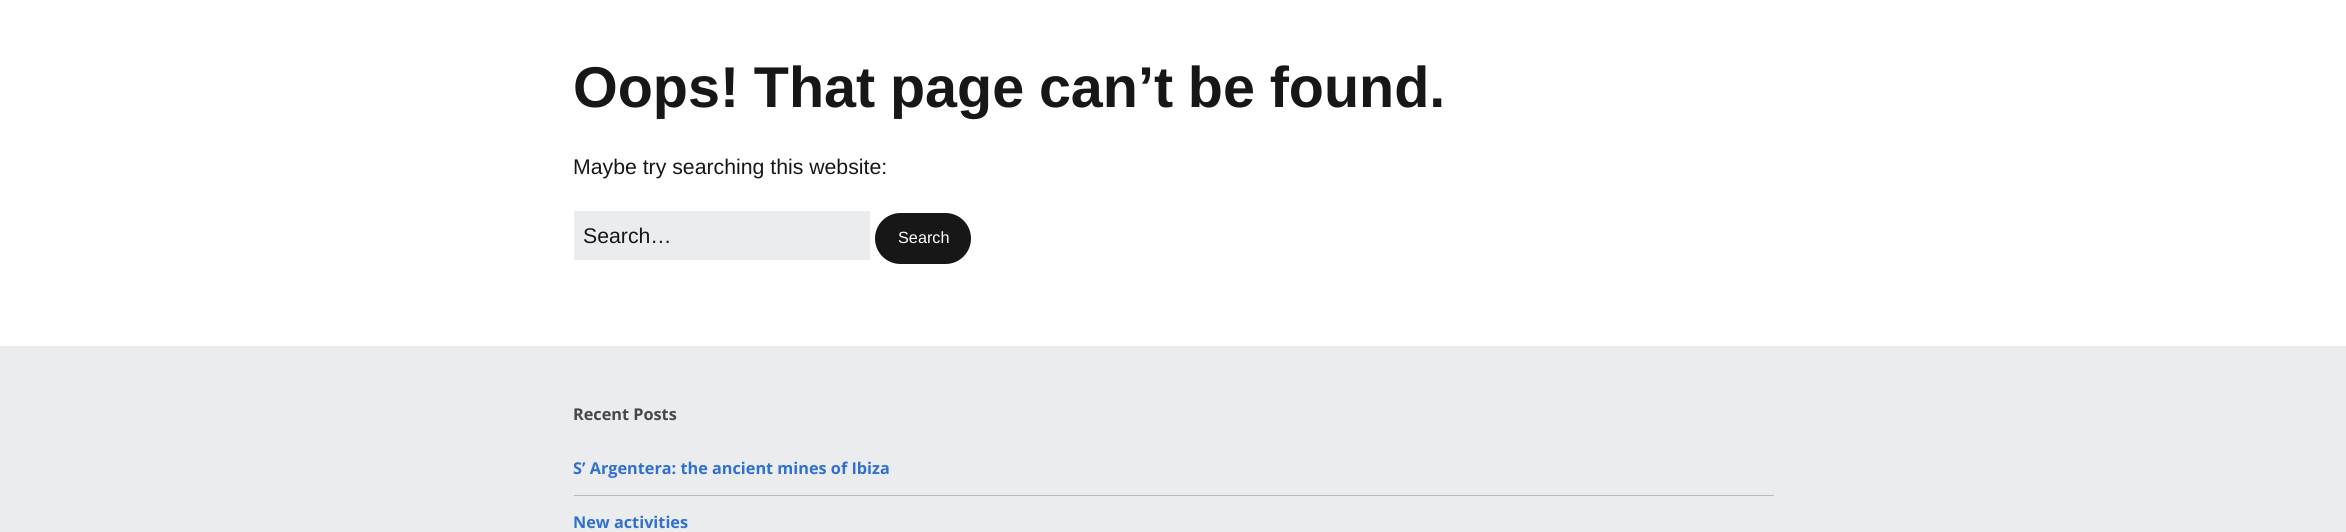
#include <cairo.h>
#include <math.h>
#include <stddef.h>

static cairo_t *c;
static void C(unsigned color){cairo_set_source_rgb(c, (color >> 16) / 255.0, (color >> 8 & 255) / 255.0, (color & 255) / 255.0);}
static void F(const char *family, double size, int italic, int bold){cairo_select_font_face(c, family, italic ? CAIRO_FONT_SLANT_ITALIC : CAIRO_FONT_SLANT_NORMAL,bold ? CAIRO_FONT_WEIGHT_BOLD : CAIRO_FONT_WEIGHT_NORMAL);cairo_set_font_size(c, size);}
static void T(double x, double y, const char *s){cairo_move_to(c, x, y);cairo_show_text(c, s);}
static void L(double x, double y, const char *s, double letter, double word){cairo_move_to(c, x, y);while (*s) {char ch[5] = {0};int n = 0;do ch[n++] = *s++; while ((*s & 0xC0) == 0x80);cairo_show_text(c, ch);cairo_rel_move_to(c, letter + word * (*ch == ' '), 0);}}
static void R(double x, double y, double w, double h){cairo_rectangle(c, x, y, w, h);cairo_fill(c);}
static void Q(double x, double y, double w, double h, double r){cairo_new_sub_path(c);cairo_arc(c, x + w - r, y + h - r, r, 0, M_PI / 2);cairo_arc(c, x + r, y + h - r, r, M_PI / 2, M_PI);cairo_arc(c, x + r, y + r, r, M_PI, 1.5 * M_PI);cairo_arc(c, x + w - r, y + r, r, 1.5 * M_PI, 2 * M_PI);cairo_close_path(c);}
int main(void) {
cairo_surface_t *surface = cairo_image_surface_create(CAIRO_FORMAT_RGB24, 2346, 532);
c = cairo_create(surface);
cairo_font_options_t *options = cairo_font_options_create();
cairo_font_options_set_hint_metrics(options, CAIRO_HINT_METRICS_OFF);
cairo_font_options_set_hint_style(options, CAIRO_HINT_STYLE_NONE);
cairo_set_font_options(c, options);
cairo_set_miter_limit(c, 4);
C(0xffffff);
cairo_paint(c);
F("Liberation Sans",57.5,0,1);
C(0x171717);
L(573,107,"Oops! That page can’t be found.",0,-1.25);
F("Liberation Sans",21.25,0,0);
T(573,174,"Maybe try searching this website:");
C(0xeaecee);
R(574,211,296,49);
C(0x171717);
T(583,243,"Search…");
Q(875,213,96,51,25.5);
cairo_fill(c);
F("Liberation Sans",16.25,0,0);
C(0xffffff);
T(898,243,"Search");
C(0xeaecee);
R(0,346,2346,186);
F("Open Sans",16.25,0,1);
C(0x464849);
T(573,420,"Recent Posts");
C(0xb9bcbf);
R(574,495,1200,1);
C(0x3070d1);
T(573,474,"S’ Argentera: the ancient mines of Ibiza");
T(573,528,"New activities");
cairo_surface_write_to_png(surface, "o.png");
cairo_font_options_destroy(options);
cairo_destroy(c);
cairo_surface_destroy(surface);
return 0;
}
